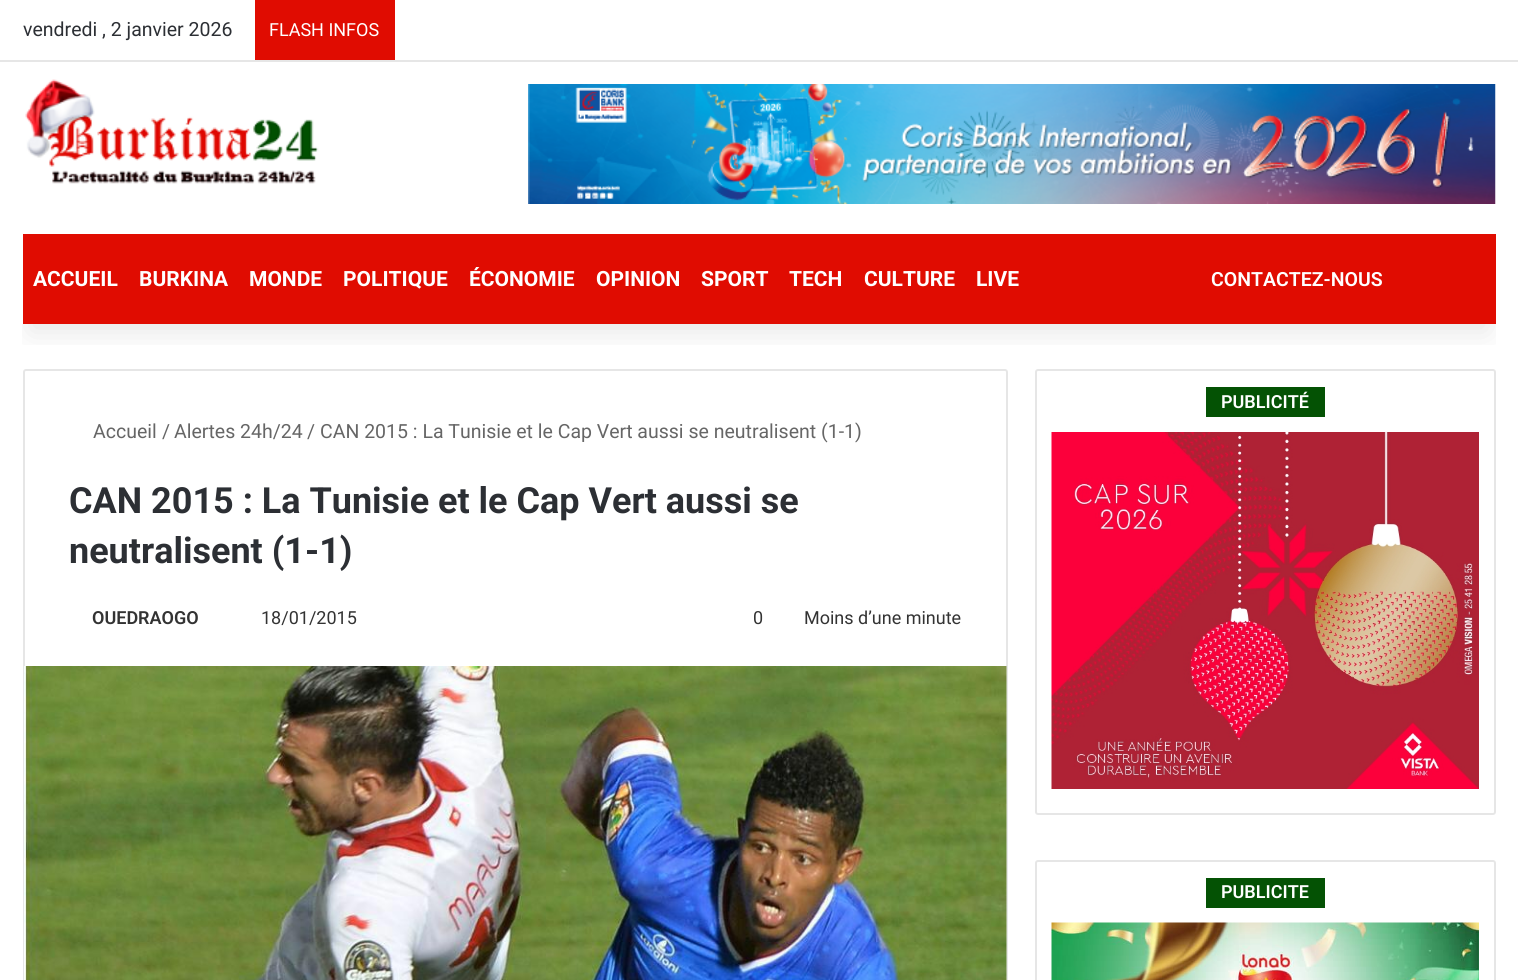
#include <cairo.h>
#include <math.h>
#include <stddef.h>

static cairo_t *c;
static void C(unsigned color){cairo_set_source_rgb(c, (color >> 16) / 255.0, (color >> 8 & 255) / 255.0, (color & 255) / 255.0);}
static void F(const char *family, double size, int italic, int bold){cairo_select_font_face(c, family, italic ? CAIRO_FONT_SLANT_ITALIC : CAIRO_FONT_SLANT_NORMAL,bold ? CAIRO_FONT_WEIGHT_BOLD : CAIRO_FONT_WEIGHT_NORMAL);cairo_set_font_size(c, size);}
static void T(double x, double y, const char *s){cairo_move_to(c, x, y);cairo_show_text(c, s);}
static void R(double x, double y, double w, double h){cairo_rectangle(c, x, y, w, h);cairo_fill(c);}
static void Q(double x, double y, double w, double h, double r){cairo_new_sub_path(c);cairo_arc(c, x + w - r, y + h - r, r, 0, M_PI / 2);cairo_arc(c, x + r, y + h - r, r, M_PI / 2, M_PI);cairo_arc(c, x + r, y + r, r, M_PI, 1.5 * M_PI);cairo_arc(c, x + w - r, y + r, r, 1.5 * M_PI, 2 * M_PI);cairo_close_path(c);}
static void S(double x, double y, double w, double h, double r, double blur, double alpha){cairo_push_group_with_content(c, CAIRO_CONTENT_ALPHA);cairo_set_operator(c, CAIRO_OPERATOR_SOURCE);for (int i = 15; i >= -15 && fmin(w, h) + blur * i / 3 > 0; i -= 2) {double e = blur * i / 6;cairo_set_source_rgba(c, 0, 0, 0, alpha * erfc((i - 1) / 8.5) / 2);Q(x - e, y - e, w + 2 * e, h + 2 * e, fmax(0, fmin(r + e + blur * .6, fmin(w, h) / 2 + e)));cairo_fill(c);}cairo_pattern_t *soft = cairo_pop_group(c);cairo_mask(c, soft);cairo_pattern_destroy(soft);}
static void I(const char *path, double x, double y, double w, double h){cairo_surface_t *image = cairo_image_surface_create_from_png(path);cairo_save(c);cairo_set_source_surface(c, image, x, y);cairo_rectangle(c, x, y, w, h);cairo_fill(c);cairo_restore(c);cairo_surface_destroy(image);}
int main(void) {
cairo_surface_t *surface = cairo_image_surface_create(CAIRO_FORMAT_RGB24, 1518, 980);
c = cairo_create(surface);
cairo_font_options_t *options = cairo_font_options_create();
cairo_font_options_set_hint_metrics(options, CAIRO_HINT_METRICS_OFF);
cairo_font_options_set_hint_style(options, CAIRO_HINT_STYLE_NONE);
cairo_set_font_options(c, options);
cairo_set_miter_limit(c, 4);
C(0xffffff);
cairo_paint(c);
Q(24,370,983,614,2);
C(0xe6e6e6);
cairo_stroke(c);
Q(1036,370,459,444,2);
cairo_stroke(c);
cairo_save(c);
cairo_rectangle(c,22,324,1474,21);
cairo_clip(c);
C(0x000000);
S(30,68,1458,264,0,15,.1);
cairo_restore(c);
R(0,60,1518,2);
F("Roboto",19.5,0,0);
C(0x2c2f34);
T(23,36,"vendredi , 2 janvier 2026");
C(0xe00c01);
R(255,0,140,60);
F("Roboto",18,0,0);
C(0xffffff);
T(269,36,"FLASH INFOS");
I("1.png",25,79,294,105);
I("2.png",528,84,968,120);
C(0xe00c01);
R(23,234,1473,90);
F("Roboto",21,0,1);
C(0xffffff);
T(33,286,"ACCUEIL");
T(139,286,"BURKINA");
T(249,286,"MONDE");
T(343,286,"POLITIQUE");
T(469,286,"ÉCONOMIE");
T(596,286,"OPINION");
T(701,286,"SPORT");
T(789,286,"TECH");
T(864,286,"CULTURE");
T(976,286,"LIVE");
F("Roboto SemiBold",19.5,0,0);
T(1211,286,"CONTACTEZ-NOUS");
F("Roboto",19.5,0,0);
C(0x666666);
T(93,438,"Accueil");
T(162,438,"/");
T(174,438,"Alertes 24h/24");
T(307,438,"/");
T(320,438,"CAN 2015 : La Tunisie et le Cap Vert aussi se neutralisent (1-1)");
F("Roboto",36,0,1);
C(0x2c2f34);
T(69,513,"CAN 2015 : La Tunisie et le Cap Vert aussi se");
T(69,563,"neutralisent (1-1)");
F("Roboto SemiBold",18,0,0);
C(0x333333);
T(92,624,"OUEDRAOGO");
F("Roboto",18,0,0);
T(261,624,"18/01/2015");
T(753,624,"0");
T(804,624,"Moins d’une minute");
I("3.png",24,666,983,314);
C(0x045204);
R(1206,387,119,30);
F("Roboto SemiBold",18,0,0);
C(0xffffff);
T(1221,408,"PUBLICITÉ");
I("4.png",1051,432,428,357);
Q(1036,861,459,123,2);
C(0xe6e6e6);
cairo_stroke(c);
C(0x045204);
R(1206,878,119,30);
C(0xffffff);
T(1221,898,"PUBLICITE");
I("5.png",1051,922,428,58);
cairo_surface_write_to_png(surface, "o.png");
cairo_font_options_destroy(options);
cairo_destroy(c);
cairo_surface_destroy(surface);
return 0;
}
